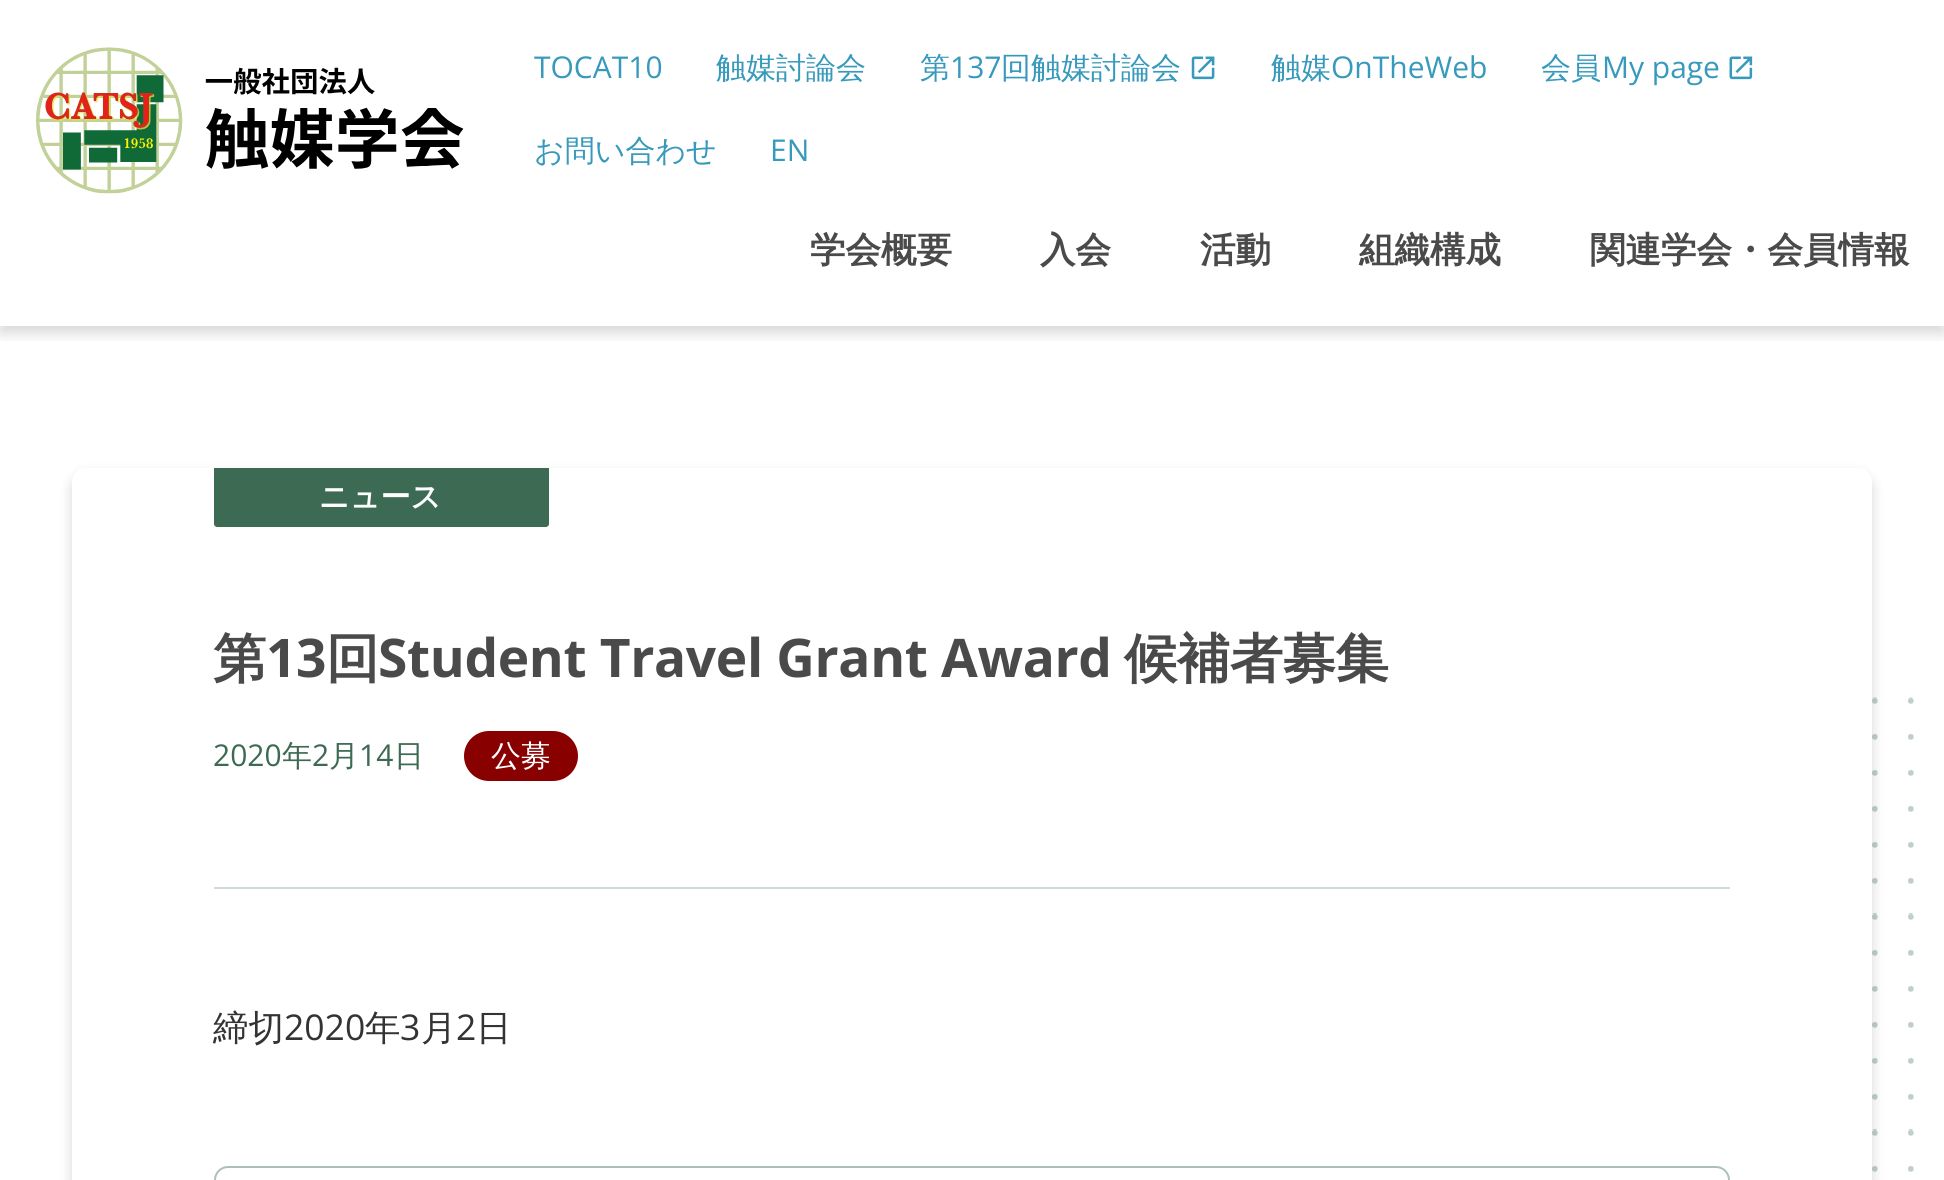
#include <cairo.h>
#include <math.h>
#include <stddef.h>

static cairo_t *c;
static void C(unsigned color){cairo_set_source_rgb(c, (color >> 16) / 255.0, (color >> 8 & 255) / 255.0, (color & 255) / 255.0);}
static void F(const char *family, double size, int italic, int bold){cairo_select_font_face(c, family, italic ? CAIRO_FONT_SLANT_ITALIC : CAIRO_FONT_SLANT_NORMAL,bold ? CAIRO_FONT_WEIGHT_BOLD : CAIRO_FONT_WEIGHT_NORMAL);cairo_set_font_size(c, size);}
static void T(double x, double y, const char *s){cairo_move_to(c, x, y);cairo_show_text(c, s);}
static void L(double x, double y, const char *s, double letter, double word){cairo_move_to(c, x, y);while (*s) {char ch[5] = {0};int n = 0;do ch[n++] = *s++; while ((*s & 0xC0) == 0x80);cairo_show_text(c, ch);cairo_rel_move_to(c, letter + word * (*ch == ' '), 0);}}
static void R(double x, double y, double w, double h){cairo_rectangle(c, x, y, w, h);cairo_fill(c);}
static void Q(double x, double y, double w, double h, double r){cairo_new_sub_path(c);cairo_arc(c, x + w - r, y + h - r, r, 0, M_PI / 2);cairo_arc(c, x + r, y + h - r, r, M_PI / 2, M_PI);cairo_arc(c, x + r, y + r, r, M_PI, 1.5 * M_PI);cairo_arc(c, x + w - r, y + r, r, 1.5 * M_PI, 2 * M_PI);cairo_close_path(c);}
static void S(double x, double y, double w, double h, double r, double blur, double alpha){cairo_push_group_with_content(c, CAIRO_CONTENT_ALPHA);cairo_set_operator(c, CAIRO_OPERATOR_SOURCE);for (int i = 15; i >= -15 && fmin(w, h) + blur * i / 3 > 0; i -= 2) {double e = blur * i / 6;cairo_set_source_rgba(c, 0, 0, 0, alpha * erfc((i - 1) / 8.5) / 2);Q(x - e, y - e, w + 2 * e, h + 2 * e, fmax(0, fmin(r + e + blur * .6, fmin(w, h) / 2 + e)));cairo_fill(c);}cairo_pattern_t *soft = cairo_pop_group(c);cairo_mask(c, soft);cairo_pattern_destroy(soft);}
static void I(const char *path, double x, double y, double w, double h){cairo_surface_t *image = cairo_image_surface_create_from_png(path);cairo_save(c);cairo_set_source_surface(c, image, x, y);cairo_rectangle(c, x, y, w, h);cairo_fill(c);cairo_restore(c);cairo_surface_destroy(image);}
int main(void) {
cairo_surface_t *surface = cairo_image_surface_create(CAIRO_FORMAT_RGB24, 1944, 1180);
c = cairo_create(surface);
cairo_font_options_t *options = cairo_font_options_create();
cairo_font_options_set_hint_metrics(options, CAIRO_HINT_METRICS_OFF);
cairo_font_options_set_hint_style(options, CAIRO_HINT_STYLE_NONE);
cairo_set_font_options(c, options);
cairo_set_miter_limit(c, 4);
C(0xffffff);
cairo_paint(c);
cairo_save(c);
cairo_rectangle(c,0,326,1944,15);
cairo_clip(c);
C(0x000000);
S(0,7,1944,326,0,7,.16);
cairo_restore(c);
I("1.png",36,47,428,147);
F("Open Sans",30,0,0);
C(0x3799bc);
T(534,78,"TOCAT10");
F("WenQuanYi Zen Hei Medium",30,0,0);
T(716,78,"触媒討論会");
T(920,78,"第");
F("Open Sans",30,0,0);
T(950,78,"137");
F("WenQuanYi Zen Hei Medium",30,0,0);
T(1001,78,"回触媒討論会");
I("2.png",1191,56,24,24);
T(1271,78,"触媒");
F("Open Sans",30,0,0);
T(1331,78,"OnTheWeb");
F("WenQuanYi Zen Hei Medium",30,0,0);
T(1541,78,"会員");
F("Open Sans",30,0,0);
T(1602,78,"My page");
I("3.png",1729,56,24,24);
F("WenQuanYi Zen Hei Medium",30,0,0);
T(534,161,"お問い合わせ");
F("Open Sans",30,0,0);
T(770,161,"EN");
F("WenQuanYi Zen Hei",35.5,0,1);
C(0x4a4a4a);
T(810,262,"学会概要");
T(1040,262,"入会");
T(1200,262,"活動");
T(1359,262,"組織構成");
T(1590,262,"関連学会・会員情報");
I("4.png",1872,697,42,475);
C(0x000000);
S(72,475,1800,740,14,7,.16);
C(0xffffff);
Q(72,468,1800,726,14);
cairo_fill(c);
C(0xd0dbd5);
R(214,887,1516,2);
C(0x3d6a52);
cairo_new_path(c);
cairo_move_to(c,214,468);
cairo_line_to(c,549,468);
cairo_line_to(c,549,524);
cairo_curve_to(c,549,525.5,547.5,527,546,527);
cairo_line_to(c,217,527);
cairo_curve_to(c,215.5,527,214,525.5,214,524);
cairo_close_path(c);
cairo_fill(c);
F("WenQuanYi Zen Hei",30,0,1);
C(0xffffff);
T(319,507,"ニュース");
F("WenQuanYi Zen Hei",53.25,0,1);
C(0x4a4a4a);
L(213,677,"第",-.35,0);
F("Open Sans",53.25,0,1);
L(266,677,"13",-.35,0);
F("WenQuanYi Zen Hei",53.25,0,1);
L(326,677,"回",-.35,0);
F("Open Sans",53.25,0,1);
L(378,677,"Student Travel Grant Award",-.35,0);
F("WenQuanYi Zen Hei",53.25,0,1);
L(1124,677,"候補者募集",-.35,0);
F("Open Sans",30,0,0);
C(0x3d6a52);
T(213,766,"2020");
F("WenQuanYi Zen Hei Medium",30,0,0);
T(282,766,"年");
F("Open Sans",30,0,0);
T(312,766,"2");
F("WenQuanYi Zen Hei Medium",30,0,0);
T(329,766,"月");
F("Open Sans",30,0,0);
T(359,766,"14");
F("WenQuanYi Zen Hei Medium",30,0,0);
T(394,766,"日");
C(0x880000);
Q(464,731,114,50,25);
cairo_fill(c);
C(0xffffff);
T(491,766,"公募");
F("WenQuanYi Zen Hei Medium",35.5,0,0);
C(0x333333);
T(213,1040,"締切");
F("Open Sans",35.5,0,0);
T(284,1040,"2020");
F("WenQuanYi Zen Hei Medium",35.5,0,0);
T(365,1040,"年");
F("Open Sans",35.5,0,0);
T(400,1040,"3");
F("WenQuanYi Zen Hei Medium",35.5,0,0);
T(421,1040,"月");
F("Open Sans",35.5,0,0);
T(456,1040,"2");
F("WenQuanYi Zen Hei Medium",35.5,0,0);
T(476,1040,"日");
Q(215,1167,1514,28,13);
C(0xaec0b6);
cairo_stroke(c);
cairo_surface_write_to_png(surface, "o.png");
cairo_font_options_destroy(options);
cairo_destroy(c);
cairo_surface_destroy(surface);
return 0;
}
